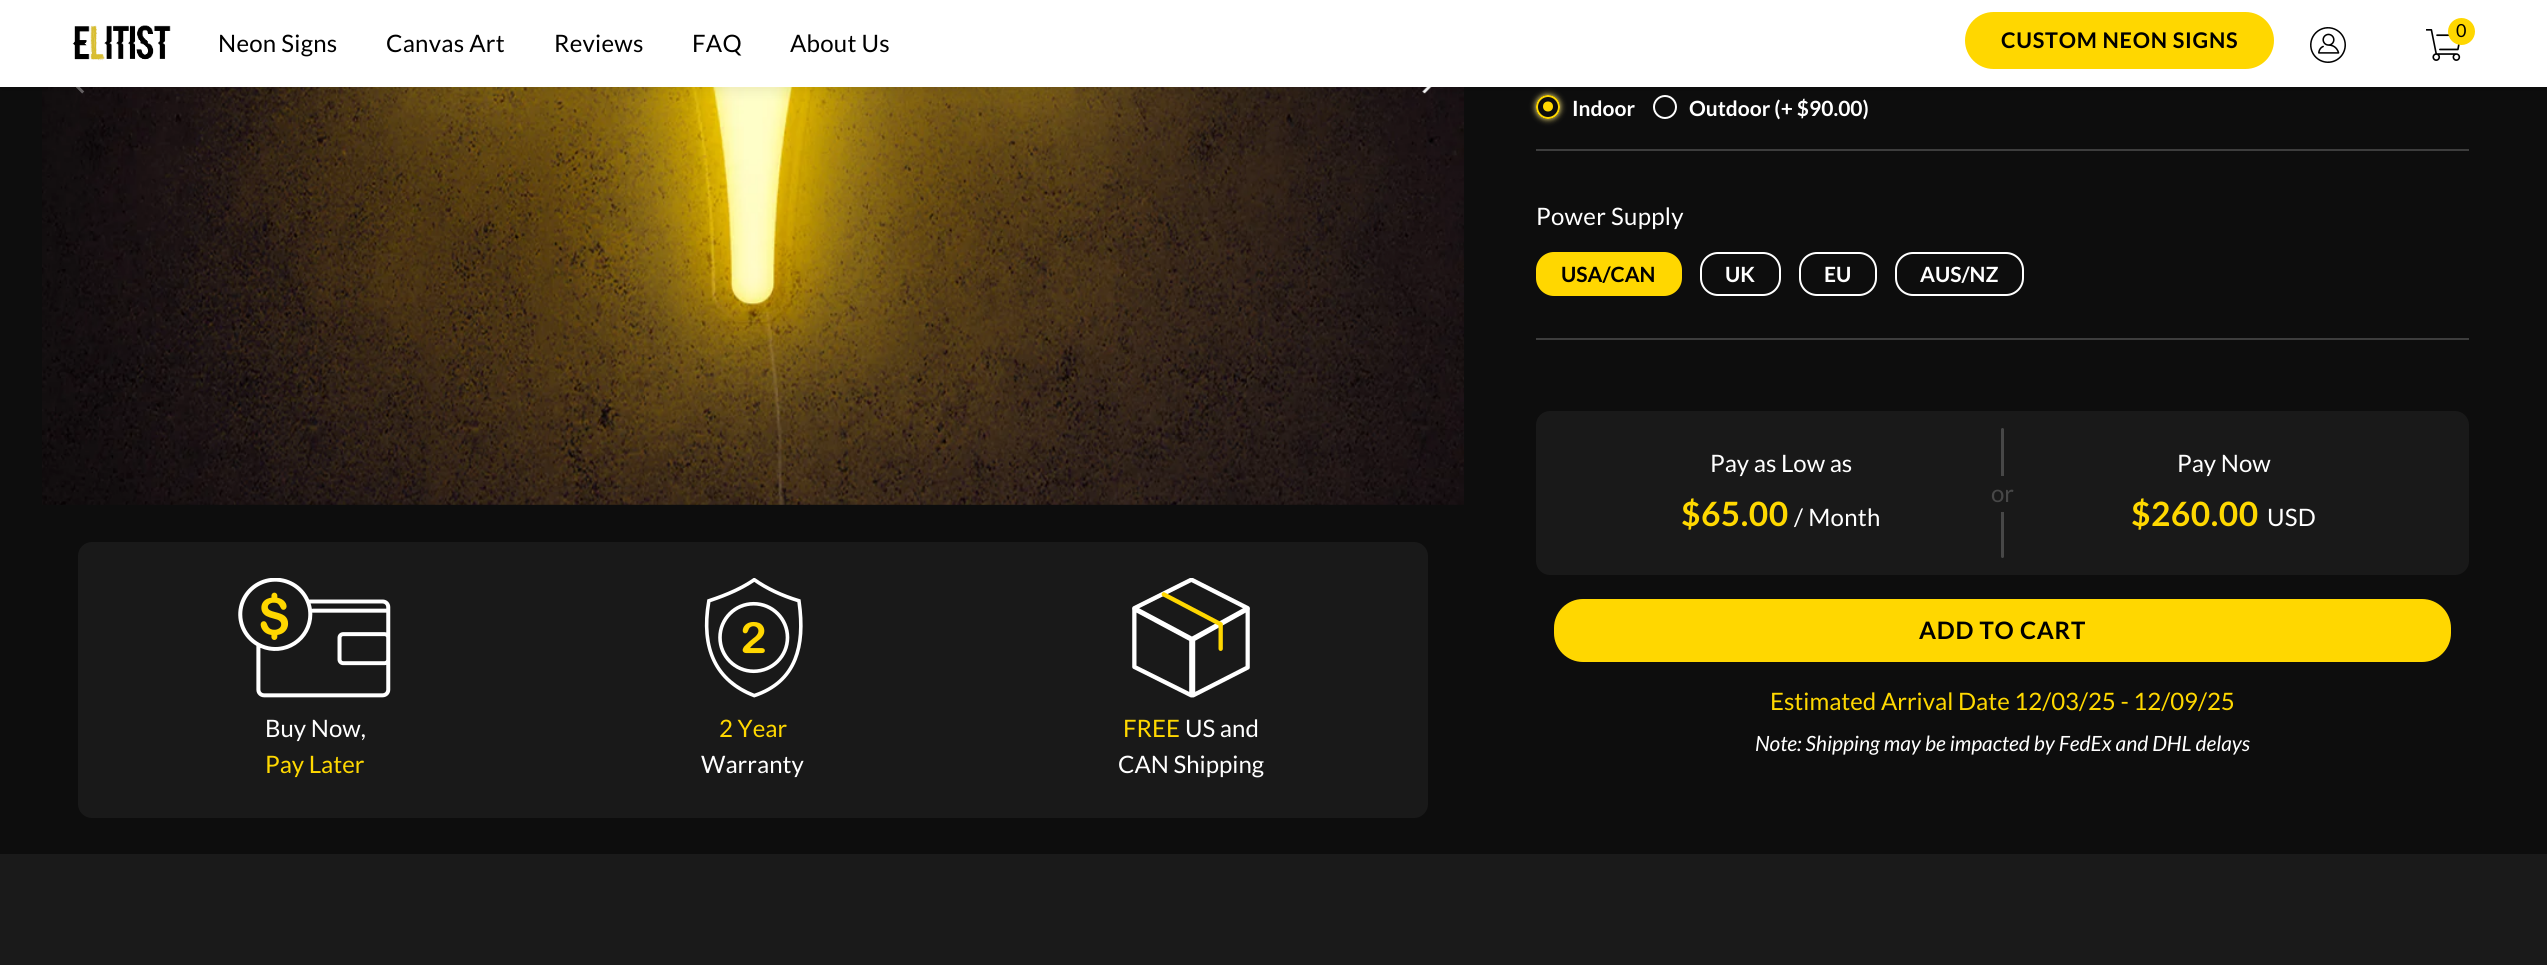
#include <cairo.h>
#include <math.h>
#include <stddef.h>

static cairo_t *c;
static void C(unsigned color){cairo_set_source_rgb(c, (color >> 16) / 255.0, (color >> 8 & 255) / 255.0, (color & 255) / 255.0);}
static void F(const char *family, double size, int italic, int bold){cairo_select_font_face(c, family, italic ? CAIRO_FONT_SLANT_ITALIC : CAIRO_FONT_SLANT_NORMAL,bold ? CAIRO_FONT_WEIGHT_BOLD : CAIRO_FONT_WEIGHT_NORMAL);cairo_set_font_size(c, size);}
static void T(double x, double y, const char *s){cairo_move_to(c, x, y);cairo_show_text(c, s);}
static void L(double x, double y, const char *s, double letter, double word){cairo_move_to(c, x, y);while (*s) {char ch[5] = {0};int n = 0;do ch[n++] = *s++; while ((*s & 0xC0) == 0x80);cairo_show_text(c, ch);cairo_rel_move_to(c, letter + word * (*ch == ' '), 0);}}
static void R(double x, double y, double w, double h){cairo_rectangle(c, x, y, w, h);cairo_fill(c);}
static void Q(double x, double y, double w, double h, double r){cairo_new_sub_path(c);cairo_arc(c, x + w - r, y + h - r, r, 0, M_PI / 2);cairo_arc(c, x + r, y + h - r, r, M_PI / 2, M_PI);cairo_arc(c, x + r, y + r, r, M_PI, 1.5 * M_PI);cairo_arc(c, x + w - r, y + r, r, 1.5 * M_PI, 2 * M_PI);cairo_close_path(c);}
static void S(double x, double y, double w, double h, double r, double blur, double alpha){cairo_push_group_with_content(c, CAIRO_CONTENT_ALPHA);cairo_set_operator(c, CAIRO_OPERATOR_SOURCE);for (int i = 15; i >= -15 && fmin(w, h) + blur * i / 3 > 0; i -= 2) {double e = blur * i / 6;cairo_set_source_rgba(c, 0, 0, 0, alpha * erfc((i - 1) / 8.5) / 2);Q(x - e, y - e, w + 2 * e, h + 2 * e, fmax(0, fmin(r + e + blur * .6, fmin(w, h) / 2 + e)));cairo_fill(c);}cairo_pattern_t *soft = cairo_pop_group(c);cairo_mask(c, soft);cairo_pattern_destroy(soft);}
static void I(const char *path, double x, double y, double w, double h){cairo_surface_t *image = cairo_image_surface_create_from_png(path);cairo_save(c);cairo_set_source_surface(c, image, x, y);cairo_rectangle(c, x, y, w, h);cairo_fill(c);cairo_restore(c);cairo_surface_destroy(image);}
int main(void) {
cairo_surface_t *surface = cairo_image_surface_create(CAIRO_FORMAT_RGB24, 2547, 965);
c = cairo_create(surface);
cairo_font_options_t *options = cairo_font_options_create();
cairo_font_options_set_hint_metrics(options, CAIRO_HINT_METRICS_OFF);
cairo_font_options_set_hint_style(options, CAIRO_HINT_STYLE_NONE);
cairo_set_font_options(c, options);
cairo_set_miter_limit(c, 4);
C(0x0d0d0d);
cairo_paint(c);
I("4.png",42,87,1422,418);
I("5.png",76,87,9,7);
I("6.png",1422,87,10,7);
cairo_save(c);
cairo_set_fill_rule(c,CAIRO_FILL_RULE_EVEN_ODD);
cairo_new_path(c);
cairo_move_to(c,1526,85);
cairo_line_to(c,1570,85);
cairo_line_to(c,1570,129);
cairo_line_to(c,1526,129);
cairo_close_path(c);
cairo_move_to(c,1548,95);
cairo_curve_to(c,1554.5,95,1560,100.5,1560,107);
cairo_curve_to(c,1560,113.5,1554.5,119,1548,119);
cairo_curve_to(c,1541.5,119,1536,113.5,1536,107);
cairo_curve_to(c,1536,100.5,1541.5,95,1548,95);
cairo_close_path(c);
cairo_clip(c);
C(0xffec83);
S(1536,95,24,24,12,3,1);
cairo_restore(c);
C(0xffd800);
cairo_arc(c,1548,106.5,5,0,2 * M_PI);
cairo_fill(c);
cairo_arc(c,1548,107,11,0,2 * M_PI);
cairo_stroke(c);
cairo_arc(c,1665,107,11,0,2 * M_PI);
C(0xffffff);
cairo_stroke(c);
C(0x000000);
S(0,3,2547,87,0,7.5,.08);
C(0xffffff);
R(0,0,2547,87);
I("1.png",72,25,99,36);
F("Lato",24,0,0);
C(0x000000);
L(218,52,"Neon Signs",.25,0);
L(386,52,"Canvas Art",.25,0);
L(554,52,"Reviews",.25,0);
L(692,52,"FAQ",.25,0);
L(790,52,"About Us",.25,0);
C(0xffd700);
Q(1965,12,309,57,28.5);
cairo_fill(c);
F("Lato",21.6,0,1);
C(0x000000);
L(2001,48,"CUSTOM NEON SIGNS",.75,0);
I("2.png",2310,27,36,36);
I("3.png",2426,29,35,32);
C(0xffd700);
cairo_arc(c,2461.5,31.5,13.5,0,2 * M_PI);
cairo_fill(c);
F("Lato",18,0,0);
C(0x000000);
T(2456,37,"0");
C(0x191919);
Q(78,542,1350,276,14);
cairo_fill(c);
I("7.png",238,578,153,120);
F("Lato",24,0,0);
C(0xffffff);
T(265,737,"Buy Now,");
C(0xffd800);
T(265,773,"Pay Later");
I("8.png",704,578,99,120);
T(719,737,"2 Year");
C(0xffffff);
T(701,773,"Warranty");
I("9.png",1132,578,118,120);
C(0xffd800);
T(1123,737,"FREE");
C(0xffffff);
T(1185,737,"US and");
T(1118,773,"CAN Shipping");
C(0x3d3d3d);
R(1536,149,933,2);
F("Lato",21,0,1);
C(0xffffff);
T(1572,116,"Indoor");
T(1689,116,"Outdoor (+ $90.00)");
C(0x3d3d3d);
R(1536,338,933,2);
F("Lato",24,0,0);
C(0xffffff);
L(1536,225,"Power Supply",.3,0);
C(0xffd700);
Q(1537,253,144,42,17);
cairo_fill_preserve(c);
cairo_stroke(c);
F("Lato",21,0,1);
C(0x000000);
T(1561,282,"USA/CAN");
Q(1701,253,79,42,17);
C(0xffffff);
cairo_stroke(c);
T(1725,282,"UK");
Q(1800,253,76,42,17);
cairo_stroke(c);
T(1824,282,"EU");
Q(1896,253,127,42,17);
cairo_stroke(c);
T(1920,282,"AUS/NZ");
C(0x191919);
Q(1536,411,933,164,14);
cairo_fill(c);
F("Lato",24,0,0);
C(0xffffff);
T(1710,472,"Pay as Low as");
F("Lato",33.5,0,1);
C(0xffd800);
L(1681,526,"$65.00",.5,0);
F("Lato",24,0,0);
C(0xffffff);
L(1794,526,"/ Month",.3,0);
C(0x474747);
Q(2001,428,3,130,1.5);
cairo_fill(c);
C(0xffffff);
T(2177,472,"Pay Now");
F("Lato",33.5,0,1);
C(0xffd800);
L(2131,526,"$260.00",.5,0);
F("Lato",24,0,0);
C(0xffffff);
L(2267,526,"USD",.3,0);
C(0x191919);
R(2001,476,3,36);
C(0x474747);
T(1991,502,"or");
C(0xffd700);
Q(1554,599,897,63,29);
cairo_fill(c);
F("Lato",24,0,1);
C(0x000000);
L(1919,639,"ADD TO CART",.75,0);
F("Lato",24,0,0);
C(0xffd800);
T(1770,710,"Estimated Arrival Date 12/03/25 - 12/09/25");
F("Lato",21,1,0);
C(0xffffff);
T(1755,751,"Note: Shipping may be impacted by FedEx and DHL delays");
C(0x1a1a1a);
R(0,854,2547,111);
cairo_surface_write_to_png(surface, "o.png");
cairo_font_options_destroy(options);
cairo_destroy(c);
cairo_surface_destroy(surface);
return 0;
}
